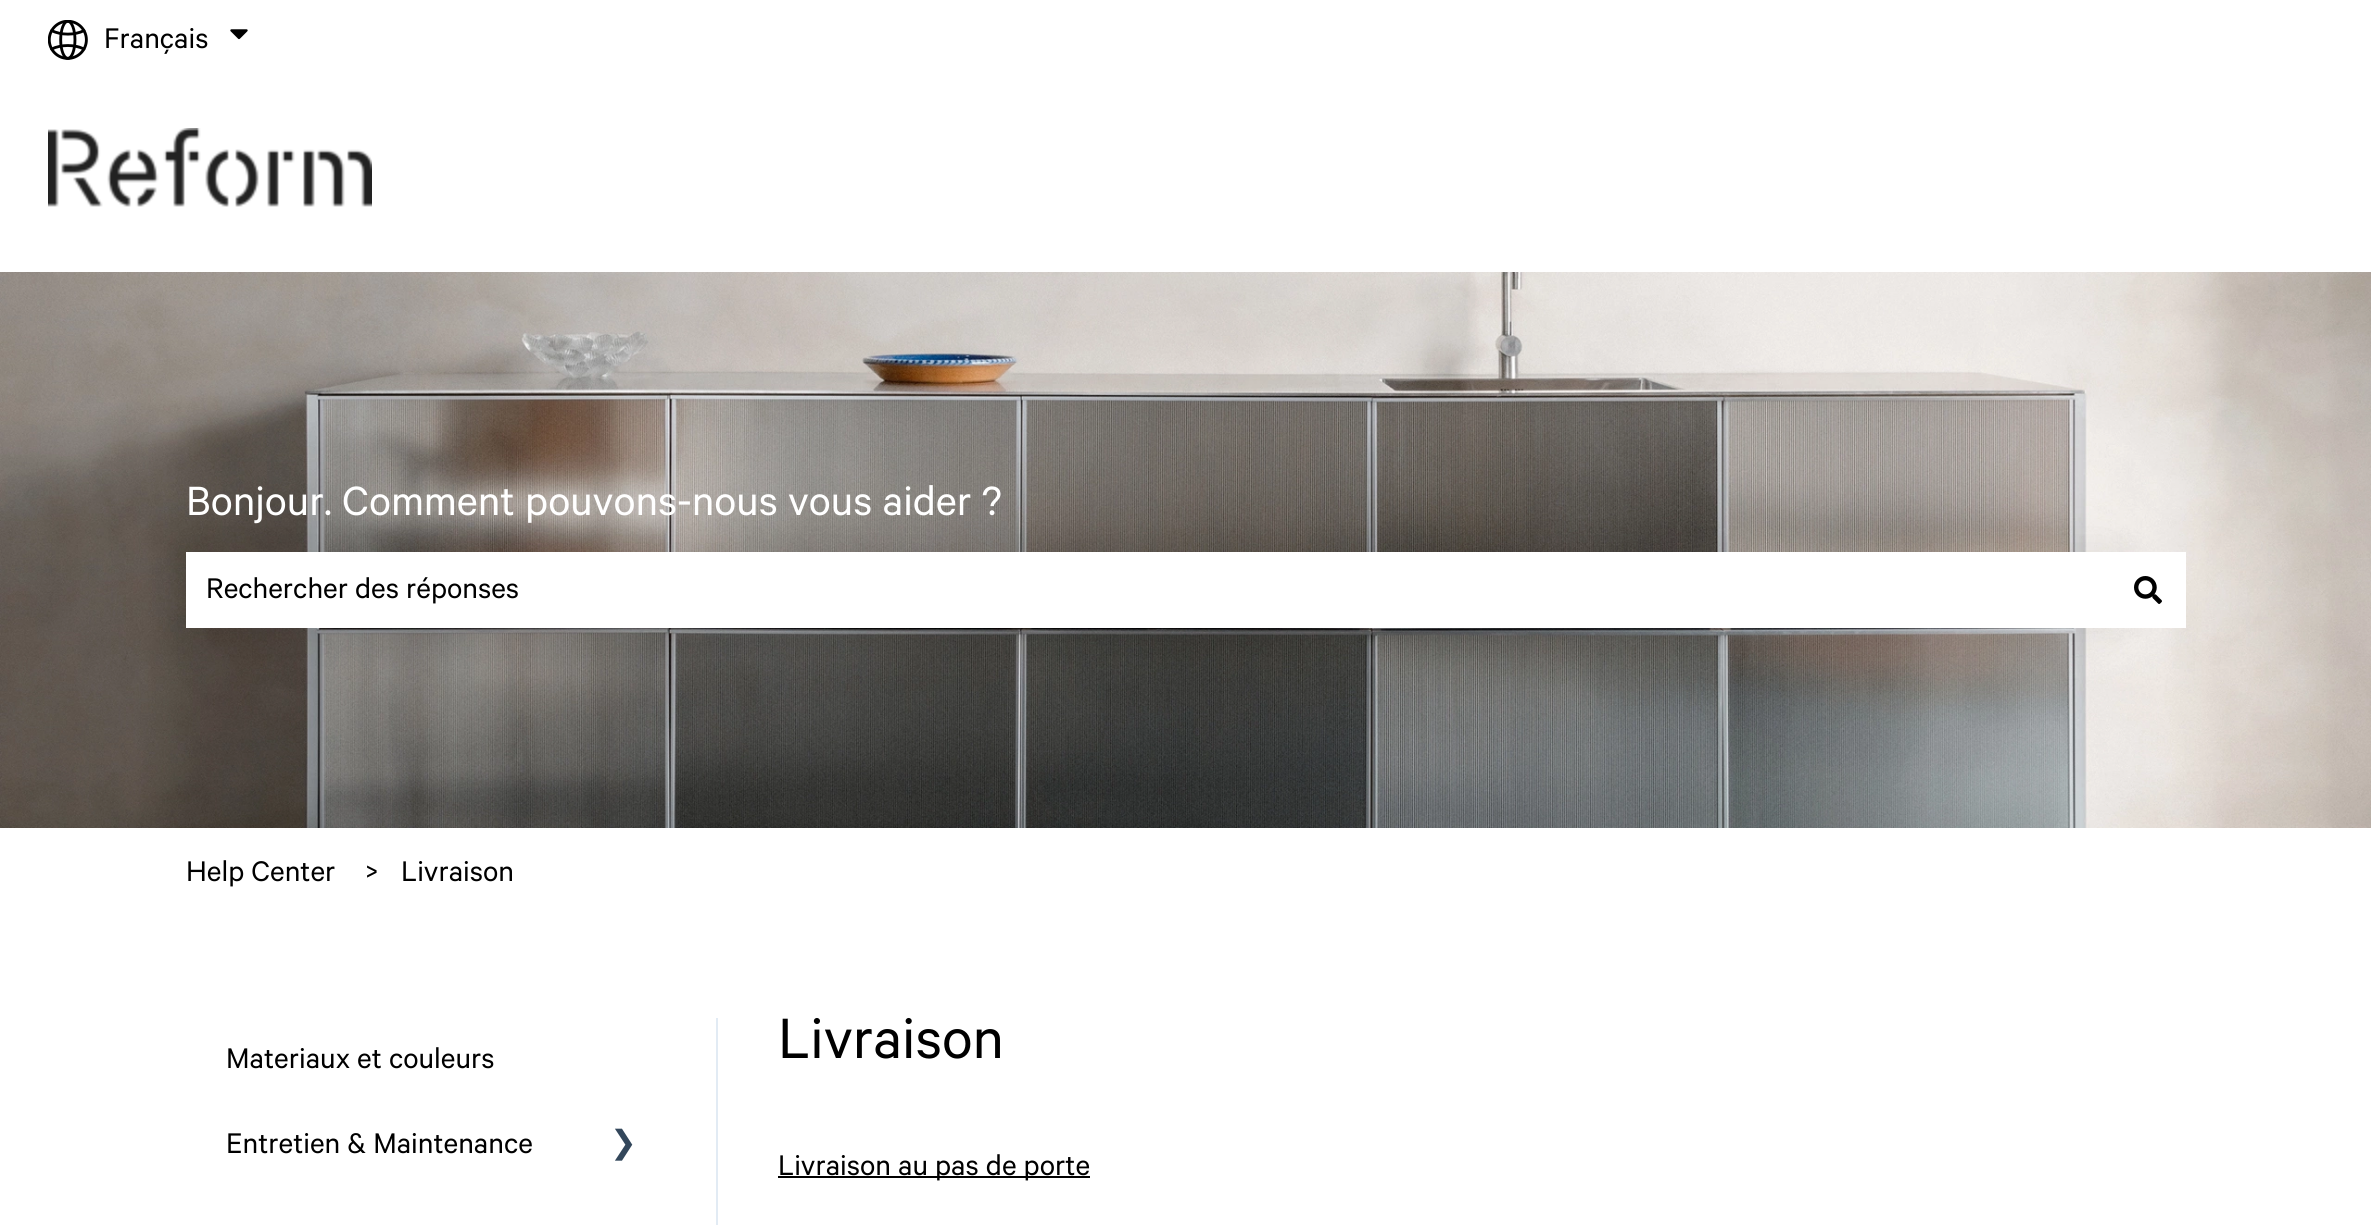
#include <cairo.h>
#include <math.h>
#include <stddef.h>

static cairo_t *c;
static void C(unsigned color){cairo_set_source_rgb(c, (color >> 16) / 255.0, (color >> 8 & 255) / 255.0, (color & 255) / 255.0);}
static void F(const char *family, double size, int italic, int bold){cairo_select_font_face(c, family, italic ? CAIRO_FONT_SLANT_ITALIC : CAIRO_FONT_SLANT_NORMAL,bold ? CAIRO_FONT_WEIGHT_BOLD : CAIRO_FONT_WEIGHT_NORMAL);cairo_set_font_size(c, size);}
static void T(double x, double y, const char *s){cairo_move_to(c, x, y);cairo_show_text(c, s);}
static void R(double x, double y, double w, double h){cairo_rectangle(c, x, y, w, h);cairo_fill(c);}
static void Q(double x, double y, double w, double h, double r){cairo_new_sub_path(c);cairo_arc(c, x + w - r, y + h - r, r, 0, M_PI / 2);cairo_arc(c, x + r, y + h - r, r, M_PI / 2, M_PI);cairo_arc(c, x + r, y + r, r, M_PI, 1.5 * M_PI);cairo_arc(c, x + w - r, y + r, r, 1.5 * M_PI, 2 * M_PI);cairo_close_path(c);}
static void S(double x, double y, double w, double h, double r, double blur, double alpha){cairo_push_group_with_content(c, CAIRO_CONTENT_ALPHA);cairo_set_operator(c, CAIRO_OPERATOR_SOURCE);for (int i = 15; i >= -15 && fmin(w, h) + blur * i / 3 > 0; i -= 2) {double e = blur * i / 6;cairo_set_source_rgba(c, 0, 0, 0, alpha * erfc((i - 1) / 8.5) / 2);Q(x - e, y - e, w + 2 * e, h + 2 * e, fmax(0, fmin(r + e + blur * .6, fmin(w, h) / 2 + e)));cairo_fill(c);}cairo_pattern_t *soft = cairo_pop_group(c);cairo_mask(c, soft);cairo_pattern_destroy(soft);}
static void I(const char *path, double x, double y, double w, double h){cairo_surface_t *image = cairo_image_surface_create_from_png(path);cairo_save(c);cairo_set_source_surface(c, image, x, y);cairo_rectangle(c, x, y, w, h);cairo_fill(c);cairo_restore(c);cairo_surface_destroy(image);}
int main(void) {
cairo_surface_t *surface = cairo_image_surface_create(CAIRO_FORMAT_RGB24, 2371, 1225);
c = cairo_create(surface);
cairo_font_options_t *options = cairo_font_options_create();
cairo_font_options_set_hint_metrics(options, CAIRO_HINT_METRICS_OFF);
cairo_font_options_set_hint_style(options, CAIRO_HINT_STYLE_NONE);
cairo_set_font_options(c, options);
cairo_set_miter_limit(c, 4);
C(0xffffff);
cairo_paint(c);
I("1.png",48,20,40,40);
F("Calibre",32,0,0);
C(0x000000);
T(104,48,"Français");
I("2.png",230,29,18,11);
I("3.png",48,128,324,79);
I("4.png",0,272,2371,556);
F("Calibre",46,0,0);
C(0xffffff);
T(186,515,"Bonjour. Comment pouvons-nous vous aider ?");
C(0x000000);
S(186,554,1924,76,0,24,.08);
C(0xffffff);
R(186,552,2000,76);
F("Calibre",32,0,0);
C(0x000000);
T(206,598,"Rechercher des réponses");
I("5.png",2134,576,28,28);
T(186,881,"Help Center");
T(365,881,">");
T(401,881,"Livraison");
C(0xe2ebf4);
R(716,1018,2,207);
C(0x000000);
T(226,1068,"Materiaux et couleurs");
T(226,1153,"Entretien & Maintenance");
F("DejaVu Sans",32,0,0);
C(0x33475b);
T(610,1153,"❯");
F("Calibre",64,0,0);
C(0x000000);
T(778,1058,"Livraison");
R(778,1176,312,2);
F("Calibre",32,0,0);
T(778,1175,"Livraison au pas de porte");
cairo_surface_write_to_png(surface, "o.png");
cairo_font_options_destroy(options);
cairo_destroy(c);
cairo_surface_destroy(surface);
return 0;
}
